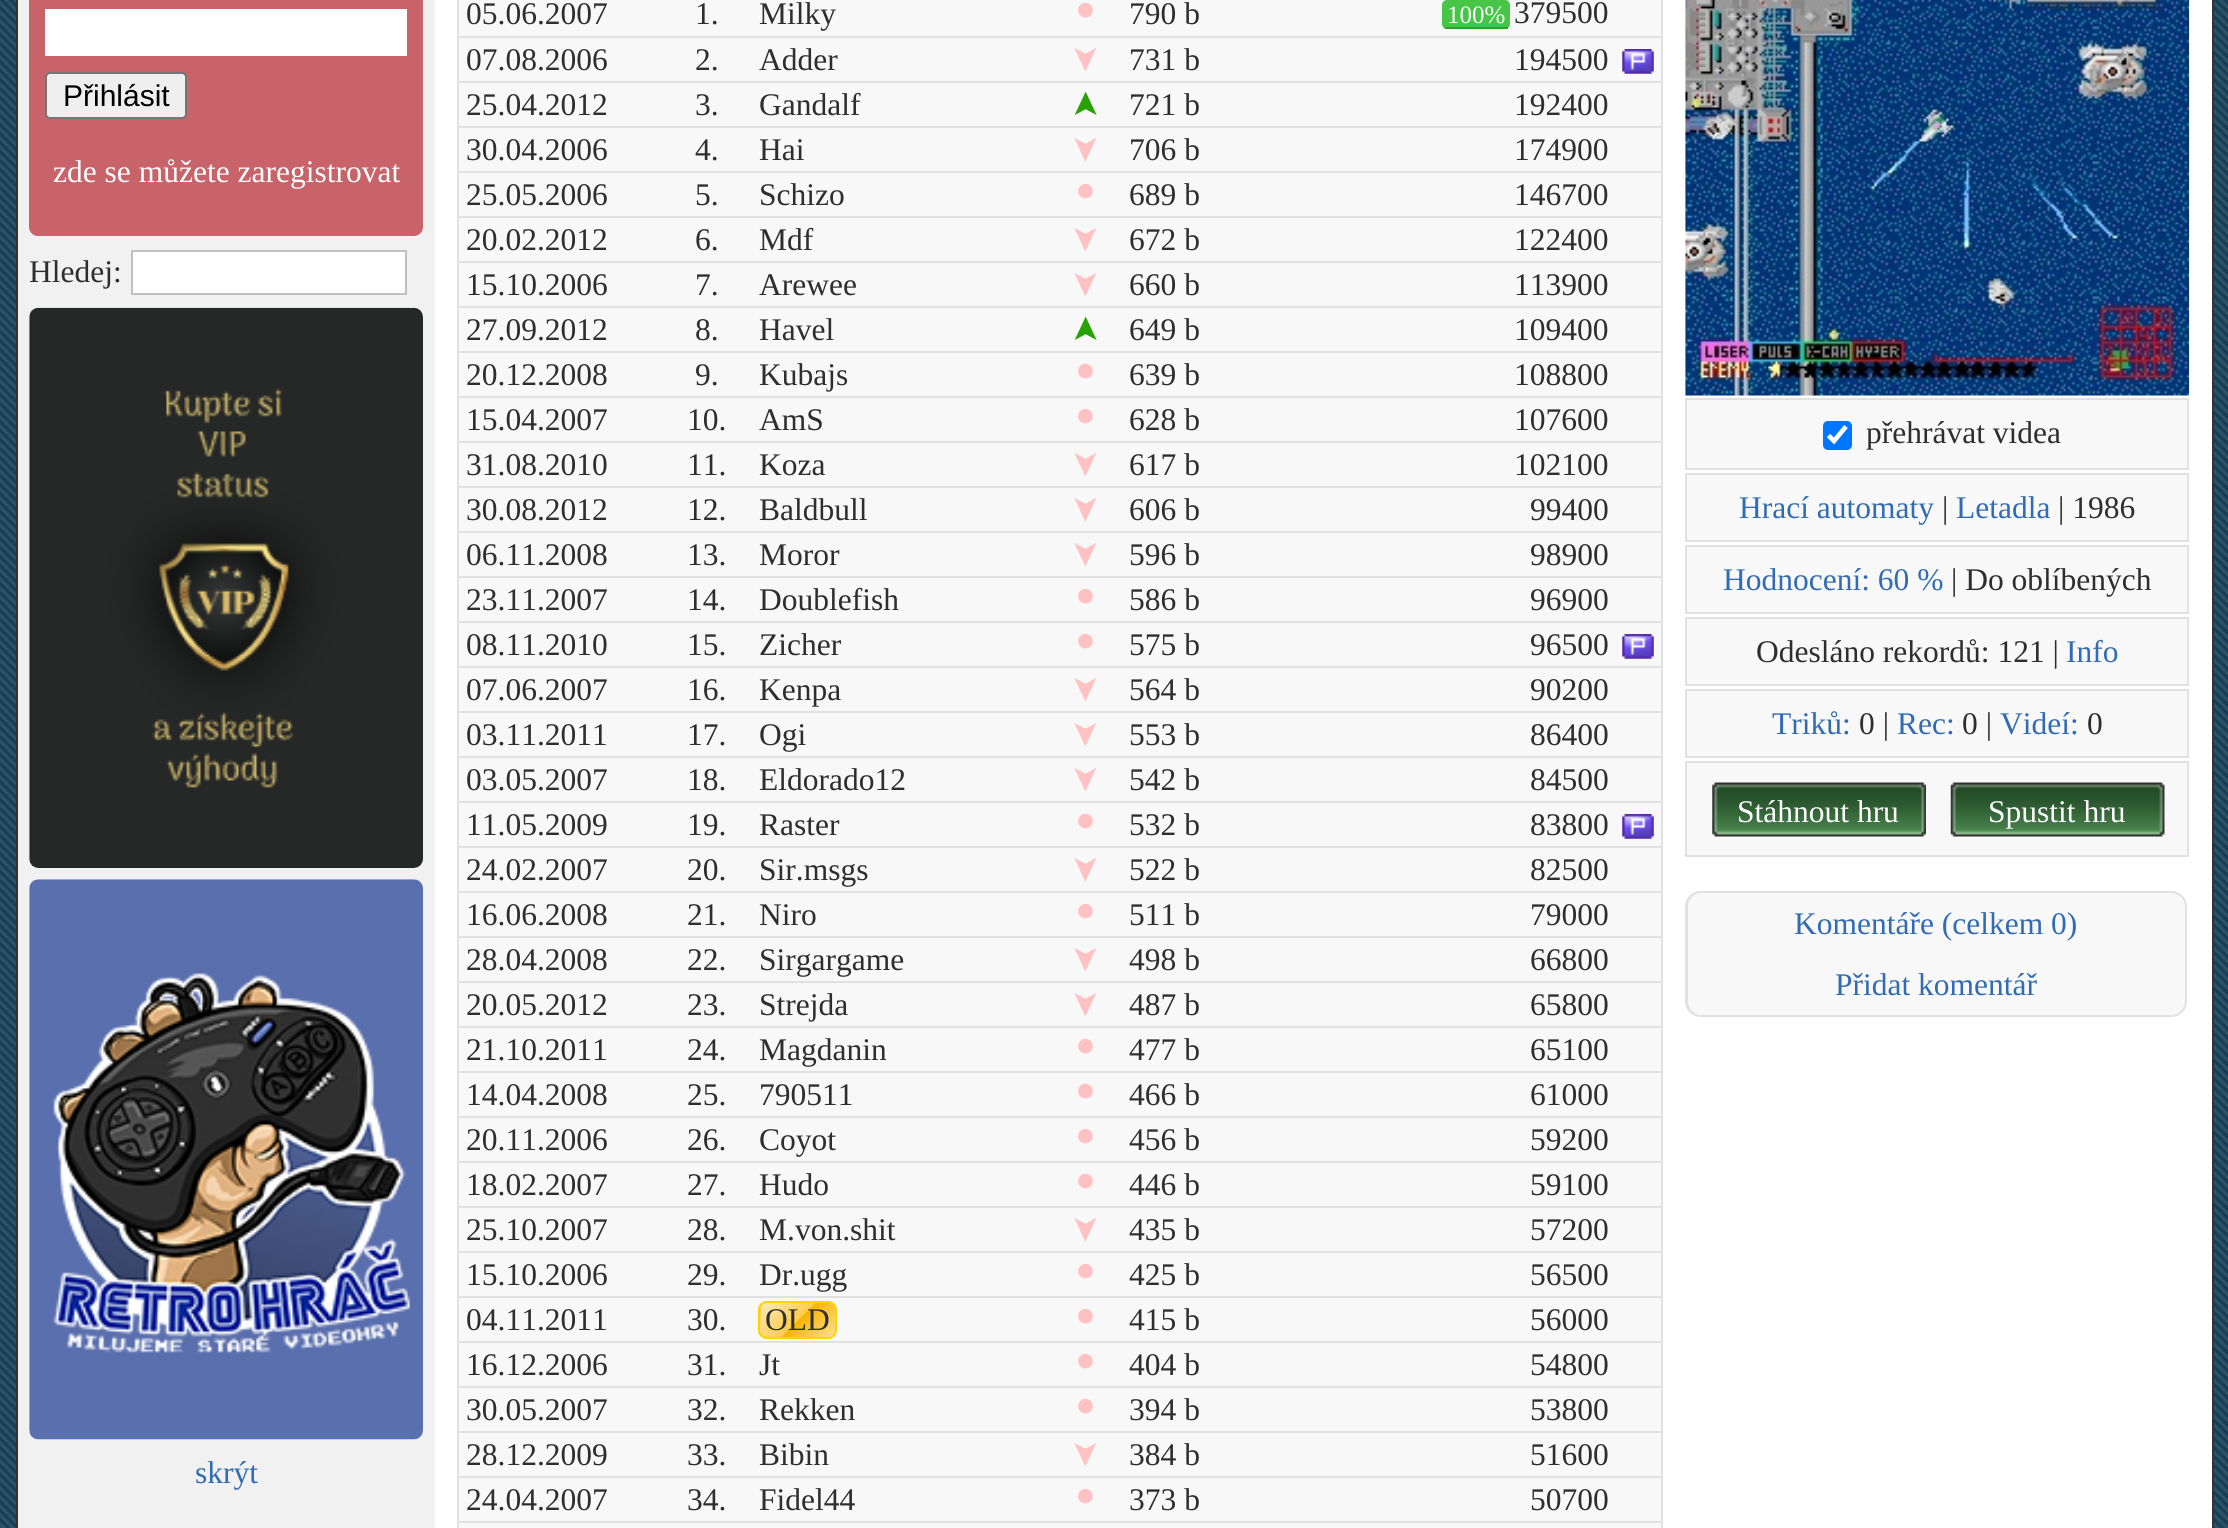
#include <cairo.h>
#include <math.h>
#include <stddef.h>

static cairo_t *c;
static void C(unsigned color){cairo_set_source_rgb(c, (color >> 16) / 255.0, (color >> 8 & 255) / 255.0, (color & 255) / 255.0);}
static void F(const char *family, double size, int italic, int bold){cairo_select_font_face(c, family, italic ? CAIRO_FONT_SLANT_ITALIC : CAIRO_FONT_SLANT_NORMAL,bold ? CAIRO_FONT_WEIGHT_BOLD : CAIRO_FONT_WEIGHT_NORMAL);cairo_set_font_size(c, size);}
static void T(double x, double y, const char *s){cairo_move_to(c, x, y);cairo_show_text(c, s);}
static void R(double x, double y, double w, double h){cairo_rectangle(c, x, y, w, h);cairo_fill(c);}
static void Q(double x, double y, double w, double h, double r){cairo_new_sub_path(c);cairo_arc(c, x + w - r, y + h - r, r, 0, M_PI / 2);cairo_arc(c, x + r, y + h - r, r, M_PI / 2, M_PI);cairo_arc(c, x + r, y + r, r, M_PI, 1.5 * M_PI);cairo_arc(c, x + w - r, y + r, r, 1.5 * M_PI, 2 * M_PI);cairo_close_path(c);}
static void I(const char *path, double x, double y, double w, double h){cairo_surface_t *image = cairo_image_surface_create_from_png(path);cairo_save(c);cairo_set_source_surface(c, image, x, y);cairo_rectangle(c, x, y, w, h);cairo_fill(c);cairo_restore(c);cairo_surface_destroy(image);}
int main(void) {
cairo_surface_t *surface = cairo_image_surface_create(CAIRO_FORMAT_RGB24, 2228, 1528);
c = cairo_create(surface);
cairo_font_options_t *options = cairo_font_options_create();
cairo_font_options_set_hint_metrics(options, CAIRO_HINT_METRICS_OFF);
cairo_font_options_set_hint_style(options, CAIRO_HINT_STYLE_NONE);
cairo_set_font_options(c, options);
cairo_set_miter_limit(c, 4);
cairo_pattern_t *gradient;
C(0xffffff);
cairo_paint(c);
I("1.png",0,0,2228,1528);
C(0xffffff);
R(435,0,1777,1528);
C(0xf1f1f1);
R(18,0,417,1528);
C(0x333333);
R(2212,0,2,1528);
R(16,0,2,1528);
C(0xc9636a);
cairo_new_path(c);
cairo_move_to(c,29,-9);
cairo_line_to(c,423,-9);
cairo_line_to(c,423,227);
cairo_curve_to(c,423,232,419,236,414,236);
cairo_line_to(c,38,236);
cairo_curve_to(c,33,236,29,232,29,227);
cairo_close_path(c);
cairo_fill(c);
C(0xffffff);
R(45,9,362,47);
C(0xefefef);
Q(46,73,140,45,4);
cairo_fill_preserve(c);
C(0x767676);
cairo_stroke(c);
F("Liberation Sans",30,0,0);
C(0x000000);
T(63,106,"Přihlásit");
F("Liberation Serif",31.5,0,0);
C(0xffffff);
T(53,182,"zde se můžete zaregistrovat");
C(0x2e2e2e);
T(29,282,"Hledej:");
C(0xffffff);
cairo_rectangle(c,132,251,274,43);
cairo_fill_preserve(c);
C(0xc0c0c0);
cairo_stroke(c);
I("2.png",29,307,394,561);
I("3.png",29,879,394,561);
C(0x306bb3);
T(195,1483,"skrýt");
C(0xf8f8f8);
R(459,0,1202,1528);
C(0xe1e1e1);
R(1661,0,2,1528);
R(457,0,2,1528);
C(0x2e2e2e);
T(466,24,"05.06.2007");
T(695,24,"1.");
T(759,24,"Milky");
F("Liberation Serif",54,0,1);
C(0xffc1c1);
T(1076,28,"•");
F("Liberation Serif",31.5,0,0);
C(0x2e2e2e);
T(1129,24,"790 b");
C(0x46c546);
Q(1442,0,68,29,5);
cairo_fill(c);
F("Liberation Serif",25,0,0);
C(0xffffff);
T(1447,23,"100%");
C(0x2e9f27);
R(1445,27,63,2);
F("Liberation Serif",31.5,0,0);
C(0x2e2e2e);
T(1514,23,"379500");
C(0xe1e1e1);
R(457,36,1206,2);
I("4.png",1622,49,32,25);
C(0x2e2e2e);
T(466,70,"07.08.2006");
T(695,70,"2.");
T(759,70,"Adder");
F("DejaVu Sans",31.5,0,1);
C(0xffc1c1);
cairo_save(c);
cairo_translate(c,1075,45);
cairo_rotate(c,90 * M_PI / 180);
T(0,0,"➤");
cairo_restore(c);
F("Liberation Serif",31.5,0,0);
C(0x2e2e2e);
T(1129,70,"731 b");
T(1514,70,"194500");
C(0xe1e1e1);
R(457,81,1206,2);
C(0x2e2e2e);
T(466,115,"25.04.2012");
T(695,115,"3.");
T(759,115,"Gandalf");
F("DejaVu Sans",31.5,0,1);
C(0x28a200);
cairo_save(c);
cairo_translate(c,1096,118);
cairo_rotate(c,-90 * M_PI / 180);
T(0,0,"➤");
cairo_restore(c);
F("Liberation Serif",31.5,0,0);
C(0x2e2e2e);
T(1129,115,"721 b");
T(1514,115,"192400");
C(0xe1e1e1);
R(457,126,1206,2);
C(0x2e2e2e);
T(466,160,"30.04.2006");
T(695,160,"4.");
T(759,160,"Hai");
F("DejaVu Sans",31.5,0,1);
C(0xffc1c1);
cairo_save(c);
cairo_translate(c,1075,135);
cairo_rotate(c,90 * M_PI / 180);
T(0,0,"➤");
cairo_restore(c);
F("Liberation Serif",31.5,0,0);
C(0x2e2e2e);
T(1129,160,"706 b");
T(1514,160,"174900");
C(0xe1e1e1);
R(457,171,1206,2);
C(0x2e2e2e);
T(466,205,"25.05.2006");
T(695,205,"5.");
T(759,205,"Schizo");
F("Liberation Serif",54,0,1);
C(0xffc1c1);
T(1076,209,"•");
F("Liberation Serif",31.5,0,0);
C(0x2e2e2e);
T(1129,205,"689 b");
T(1514,205,"146700");
C(0xe1e1e1);
R(457,216,1206,2);
C(0x2e2e2e);
T(466,250,"20.02.2012");
T(695,250,"6.");
T(759,250,"Mdf");
F("DejaVu Sans",31.5,0,1);
C(0xffc1c1);
cairo_save(c);
cairo_translate(c,1075,225);
cairo_rotate(c,90 * M_PI / 180);
T(0,0,"➤");
cairo_restore(c);
F("Liberation Serif",31.5,0,0);
C(0x2e2e2e);
T(1129,250,"672 b");
T(1514,250,"122400");
C(0xe1e1e1);
R(457,261,1206,2);
C(0x2e2e2e);
T(466,295,"15.10.2006");
T(695,295,"7.");
T(759,295,"Arewee");
F("DejaVu Sans",31.5,0,1);
C(0xffc1c1);
cairo_save(c);
cairo_translate(c,1075,270);
cairo_rotate(c,90 * M_PI / 180);
T(0,0,"➤");
cairo_restore(c);
F("Liberation Serif",31.5,0,0);
C(0x2e2e2e);
T(1129,295,"660 b");
T(1514,295,"113900");
C(0xe1e1e1);
R(457,306,1206,2);
C(0x2e2e2e);
T(466,340,"27.09.2012");
T(695,340,"8.");
T(759,340,"Havel");
F("DejaVu Sans",31.5,0,1);
C(0x28a200);
cairo_save(c);
cairo_translate(c,1096,343);
cairo_rotate(c,-90 * M_PI / 180);
T(0,0,"➤");
cairo_restore(c);
F("Liberation Serif",31.5,0,0);
C(0x2e2e2e);
T(1129,340,"649 b");
T(1514,340,"109400");
C(0xe1e1e1);
R(457,351,1206,2);
C(0x2e2e2e);
T(466,385,"20.12.2008");
T(695,385,"9.");
T(759,385,"Kubajs");
F("Liberation Serif",54,0,1);
C(0xffc1c1);
T(1076,389,"•");
F("Liberation Serif",31.5,0,0);
C(0x2e2e2e);
T(1129,385,"639 b");
T(1514,385,"108800");
C(0xe1e1e1);
R(457,396,1206,2);
C(0x2e2e2e);
T(466,430,"15.04.2007");
T(687,430,"10.");
T(759,430,"AmS");
F("Liberation Serif",54,0,1);
C(0xffc1c1);
T(1076,434,"•");
F("Liberation Serif",31.5,0,0);
C(0x2e2e2e);
T(1129,430,"628 b");
T(1514,430,"107600");
C(0xe1e1e1);
R(457,441,1206,2);
C(0x2e2e2e);
T(466,475,"31.08.2010");
T(687,475,"11.");
T(759,475,"Koza");
F("DejaVu Sans",31.5,0,1);
C(0xffc1c1);
cairo_save(c);
cairo_translate(c,1075,450);
cairo_rotate(c,90 * M_PI / 180);
T(0,0,"➤");
cairo_restore(c);
F("Liberation Serif",31.5,0,0);
C(0x2e2e2e);
T(1129,475,"617 b");
T(1514,475,"102100");
C(0xe1e1e1);
R(457,486,1206,2);
C(0x2e2e2e);
T(466,520,"30.08.2012");
T(687,520,"12.");
T(759,520,"Baldbull");
F("DejaVu Sans",31.5,0,1);
C(0xffc1c1);
cairo_save(c);
cairo_translate(c,1075,495);
cairo_rotate(c,90 * M_PI / 180);
T(0,0,"➤");
cairo_restore(c);
F("Liberation Serif",31.5,0,0);
C(0x2e2e2e);
T(1129,520,"606 b");
T(1530,520,"99400");
C(0xe1e1e1);
R(457,531,1206,2);
C(0x2e2e2e);
T(466,565,"06.11.2008");
T(687,565,"13.");
T(759,565,"Moror");
F("DejaVu Sans",31.5,0,1);
C(0xffc1c1);
cairo_save(c);
cairo_translate(c,1075,540);
cairo_rotate(c,90 * M_PI / 180);
T(0,0,"➤");
cairo_restore(c);
F("Liberation Serif",31.5,0,0);
C(0x2e2e2e);
T(1129,565,"596 b");
T(1530,565,"98900");
C(0xe1e1e1);
R(457,576,1206,2);
C(0x2e2e2e);
T(466,610,"23.11.2007");
T(687,610,"14.");
T(759,610,"Doublefish");
F("Liberation Serif",54,0,1);
C(0xffc1c1);
T(1076,614,"•");
F("Liberation Serif",31.5,0,0);
C(0x2e2e2e);
T(1129,610,"586 b");
T(1530,610,"96900");
C(0xe1e1e1);
R(457,621,1206,2);
I("4.png",1622,634,32,25);
C(0x2e2e2e);
T(466,655,"08.11.2010");
T(687,655,"15.");
T(759,655,"Zicher");
F("Liberation Serif",54,0,1);
C(0xffc1c1);
T(1076,659,"•");
F("Liberation Serif",31.5,0,0);
C(0x2e2e2e);
T(1129,655,"575 b");
T(1530,655,"96500");
C(0xe1e1e1);
R(457,666,1206,2);
C(0x2e2e2e);
T(466,700,"07.06.2007");
T(687,700,"16.");
T(759,700,"Kenpa");
F("DejaVu Sans",31.5,0,1);
C(0xffc1c1);
cairo_save(c);
cairo_translate(c,1075,675);
cairo_rotate(c,90 * M_PI / 180);
T(0,0,"➤");
cairo_restore(c);
F("Liberation Serif",31.5,0,0);
C(0x2e2e2e);
T(1129,700,"564 b");
T(1530,700,"90200");
C(0xe1e1e1);
R(457,711,1206,2);
C(0x2e2e2e);
T(466,745,"03.11.2011");
T(687,745,"17.");
T(759,745,"Ogi");
F("DejaVu Sans",31.5,0,1);
C(0xffc1c1);
cairo_save(c);
cairo_translate(c,1075,720);
cairo_rotate(c,90 * M_PI / 180);
T(0,0,"➤");
cairo_restore(c);
F("Liberation Serif",31.5,0,0);
C(0x2e2e2e);
T(1129,745,"553 b");
T(1530,745,"86400");
C(0xe1e1e1);
R(457,756,1206,2);
C(0x2e2e2e);
T(466,790,"03.05.2007");
T(687,790,"18.");
T(759,790,"Eldorado12");
F("DejaVu Sans",31.5,0,1);
C(0xffc1c1);
cairo_save(c);
cairo_translate(c,1075,765);
cairo_rotate(c,90 * M_PI / 180);
T(0,0,"➤");
cairo_restore(c);
F("Liberation Serif",31.5,0,0);
C(0x2e2e2e);
T(1129,790,"542 b");
T(1530,790,"84500");
C(0xe1e1e1);
R(457,801,1206,2);
I("5.png",1622,814,32,25);
C(0x2e2e2e);
T(466,835,"11.05.2009");
T(687,835,"19.");
T(759,835,"Raster");
F("Liberation Serif",54,0,1);
C(0xffc1c1);
T(1076,839,"•");
F("Liberation Serif",31.5,0,0);
C(0x2e2e2e);
T(1129,835,"532 b");
T(1530,835,"83800");
C(0xe1e1e1);
R(457,846,1206,2);
C(0x2e2e2e);
T(466,880,"24.02.2007");
T(687,880,"20.");
T(759,880,"Sir.msgs");
F("DejaVu Sans",31.5,0,1);
C(0xffc1c1);
cairo_save(c);
cairo_translate(c,1075,855);
cairo_rotate(c,90 * M_PI / 180);
T(0,0,"➤");
cairo_restore(c);
F("Liberation Serif",31.5,0,0);
C(0x2e2e2e);
T(1129,880,"522 b");
T(1530,880,"82500");
C(0xe1e1e1);
R(457,891,1206,2);
C(0x2e2e2e);
T(466,925,"16.06.2008");
T(687,925,"21.");
T(759,925,"Niro");
F("Liberation Serif",54,0,1);
C(0xffc1c1);
T(1076,929,"•");
F("Liberation Serif",31.5,0,0);
C(0x2e2e2e);
T(1129,925,"511 b");
T(1530,925,"79000");
C(0xe1e1e1);
R(457,936,1206,2);
C(0x2e2e2e);
T(466,970,"28.04.2008");
T(687,970,"22.");
T(759,970,"Sirgargame");
F("DejaVu Sans",31.5,0,1);
C(0xffc1c1);
cairo_save(c);
cairo_translate(c,1075,945);
cairo_rotate(c,90 * M_PI / 180);
T(0,0,"➤");
cairo_restore(c);
F("Liberation Serif",31.5,0,0);
C(0x2e2e2e);
T(1129,970,"498 b");
T(1530,970,"66800");
C(0xe1e1e1);
R(457,981,1206,2);
C(0x2e2e2e);
T(466,1015,"20.05.2012");
T(687,1015,"23.");
T(759,1015,"Strejda");
F("DejaVu Sans",31.5,0,1);
C(0xffc1c1);
cairo_save(c);
cairo_translate(c,1075,990);
cairo_rotate(c,90 * M_PI / 180);
T(0,0,"➤");
cairo_restore(c);
F("Liberation Serif",31.5,0,0);
C(0x2e2e2e);
T(1129,1015,"487 b");
T(1530,1015,"65800");
C(0xe1e1e1);
R(457,1026,1206,2);
C(0x2e2e2e);
T(466,1060,"21.10.2011");
T(687,1060,"24.");
T(759,1060,"Magdanin");
F("Liberation Serif",54,0,1);
C(0xffc1c1);
T(1076,1064,"•");
F("Liberation Serif",31.5,0,0);
C(0x2e2e2e);
T(1129,1060,"477 b");
T(1530,1060,"65100");
C(0xe1e1e1);
R(457,1071,1206,2);
C(0x2e2e2e);
T(466,1105,"14.04.2008");
T(687,1105,"25.");
T(759,1105,"790511");
F("Liberation Serif",54,0,1);
C(0xffc1c1);
T(1076,1109,"•");
F("Liberation Serif",31.5,0,0);
C(0x2e2e2e);
T(1129,1105,"466 b");
T(1530,1105,"61000");
C(0xe1e1e1);
R(457,1116,1206,2);
C(0x2e2e2e);
T(466,1150,"20.11.2006");
T(687,1150,"26.");
T(759,1150,"Coyot");
F("Liberation Serif",54,0,1);
C(0xffc1c1);
T(1076,1154,"•");
F("Liberation Serif",31.5,0,0);
C(0x2e2e2e);
T(1129,1150,"456 b");
T(1530,1150,"59200");
C(0xe1e1e1);
R(457,1161,1206,2);
C(0x2e2e2e);
T(466,1195,"18.02.2007");
T(687,1195,"27.");
T(759,1195,"Hudo");
F("Liberation Serif",54,0,1);
C(0xffc1c1);
T(1076,1199,"•");
F("Liberation Serif",31.5,0,0);
C(0x2e2e2e);
T(1129,1195,"446 b");
T(1530,1195,"59100");
C(0xe1e1e1);
R(457,1206,1206,2);
C(0x2e2e2e);
T(466,1240,"25.10.2007");
T(687,1240,"28.");
T(759,1240,"M.von.shit");
F("DejaVu Sans",31.5,0,1);
C(0xffc1c1);
cairo_save(c);
cairo_translate(c,1075,1215);
cairo_rotate(c,90 * M_PI / 180);
T(0,0,"➤");
cairo_restore(c);
F("Liberation Serif",31.5,0,0);
C(0x2e2e2e);
T(1129,1240,"435 b");
T(1530,1240,"57200");
C(0xe1e1e1);
R(457,1251,1206,2);
C(0x2e2e2e);
T(466,1285,"15.10.2006");
T(687,1285,"29.");
T(759,1285,"Dr.ugg");
F("Liberation Serif",54,0,1);
C(0xffc1c1);
T(1076,1289,"•");
F("Liberation Serif",31.5,0,0);
C(0x2e2e2e);
T(1129,1285,"425 b");
T(1530,1285,"56500");
C(0xe1e1e1);
R(457,1296,1206,2);
C(0x2e2e2e);
T(466,1330,"04.11.2011");
T(687,1330,"30.");
cairo_save(c);
Q(758,1301,79,38,9);
cairo_clip(c);
gradient = cairo_pattern_create_linear(771,1293,825,1347);
cairo_pattern_add_color_stop_rgba(gradient,0,0.988,0.918,0.733,1);
cairo_pattern_add_color_stop_rgba(gradient,.5,0.988,0.804,0.302,1);
cairo_pattern_add_color_stop_rgba(gradient,.51,0.973,0.71,0,1);
cairo_pattern_add_color_stop_rgba(gradient,1,0.984,0.875,0.576,1);
cairo_set_source(c,gradient);
cairo_pattern_destroy(gradient);
R(761,1303,74,34);
gradient = cairo_pattern_create_linear(696,1293,750,1347);
cairo_pattern_add_color_stop_rgba(gradient,0,0.988,0.918,0.733,1);
cairo_pattern_add_color_stop_rgba(gradient,.5,0.988,0.804,0.302,1);
cairo_pattern_add_color_stop_rgba(gradient,.51,0.973,0.71,0,1);
cairo_pattern_add_color_stop_rgba(gradient,1,0.984,0.875,0.576,1);
cairo_set_source(c,gradient);
cairo_pattern_destroy(gradient);
R(758,1303,3,34);
cairo_restore(c);
Q(759,1302,77,36,8);
C(0xffd400);
cairo_stroke(c);
C(0x2e2e2e);
T(765,1330,"OLD");
F("Liberation Serif",54,0,1);
C(0xffc1c1);
T(1076,1334,"•");
F("Liberation Serif",31.5,0,0);
C(0x2e2e2e);
T(1129,1330,"415 b");
T(1530,1330,"56000");
C(0xe1e1e1);
R(457,1341,1206,2);
C(0x2e2e2e);
T(466,1375,"16.12.2006");
T(687,1375,"31.");
T(759,1375,"Jt");
F("Liberation Serif",54,0,1);
C(0xffc1c1);
T(1076,1379,"•");
F("Liberation Serif",31.5,0,0);
C(0x2e2e2e);
T(1129,1375,"404 b");
T(1530,1375,"54800");
C(0xe1e1e1);
R(457,1386,1206,2);
C(0x2e2e2e);
T(466,1420,"30.05.2007");
T(687,1420,"32.");
T(759,1420,"Rekken");
F("Liberation Serif",54,0,1);
C(0xffc1c1);
T(1076,1424,"•");
F("Liberation Serif",31.5,0,0);
C(0x2e2e2e);
T(1129,1420,"394 b");
T(1530,1420,"53800");
C(0xe1e1e1);
R(457,1431,1206,2);
C(0x2e2e2e);
T(466,1465,"28.12.2009");
T(687,1465,"33.");
T(759,1465,"Bibin");
F("DejaVu Sans",31.5,0,1);
C(0xffc1c1);
cairo_save(c);
cairo_translate(c,1075,1440);
cairo_rotate(c,90 * M_PI / 180);
T(0,0,"➤");
cairo_restore(c);
F("Liberation Serif",31.5,0,0);
C(0x2e2e2e);
T(1129,1465,"384 b");
T(1530,1465,"51600");
C(0xe1e1e1);
R(457,1476,1206,2);
C(0x2e2e2e);
T(466,1510,"24.04.2007");
T(687,1510,"34.");
T(759,1510,"Fidel44");
F("Liberation Serif",54,0,1);
C(0xffc1c1);
T(1076,1514,"•");
F("Liberation Serif",31.5,0,0);
C(0x2e2e2e);
T(1129,1510,"373 b");
T(1530,1510,"50700");
C(0xe1e1e1);
R(457,1521,1206,2);
I("6.png",1685,0,505,396);
C(0xf8f8f8);
cairo_rectangle(c,1686,399,502,70);
cairo_fill_preserve(c);
C(0xe1e1e1);
cairo_stroke(c);
C(0x0075ff);
Q(1823,421,29,29,5);
cairo_fill(c);
cairo_new_path(c);
cairo_move_to(c,1828.5,435.5);
cairo_line_to(c,1834,441);
cairo_line_to(c,1846,426.5);
C(0xffffff);
cairo_set_line_width(c,4.7);
cairo_stroke(c);
C(0x2e2e2e);
T(1866,443,"přehrávat videa");
C(0xf8f8f8);
cairo_rectangle(c,1686,474,502,67);
cairo_fill_preserve(c);
C(0xe1e1e1);
cairo_set_line_width(c,2);
cairo_stroke(c);
C(0x306bb3);
T(1739,518,"Hrací automaty");
C(0x2e2e2e);
T(1942,518,"|");
C(0x306bb3);
T(1956,518,"Letadla");
C(0x2e2e2e);
T(2058,518,"| 1986");
C(0xf8f8f8);
cairo_rectangle(c,1686,546,502,67);
cairo_fill_preserve(c);
C(0xe1e1e1);
cairo_stroke(c);
C(0x306bb3);
T(1723,590,"Hodnocení: 60 %");
C(0x2e2e2e);
T(1951,590,"| Do oblíbených");
C(0xf8f8f8);
cairo_rectangle(c,1686,618,502,67);
cairo_fill_preserve(c);
C(0xe1e1e1);
cairo_stroke(c);
C(0x2e2e2e);
T(1756,662,"Odesláno rekordů: 121 |");
C(0x306bb3);
T(2066,662,"Info");
C(0xf8f8f8);
cairo_rectangle(c,1686,690,502,67);
cairo_fill_preserve(c);
C(0xe1e1e1);
cairo_stroke(c);
C(0x306bb3);
T(1772,734,"Triků:");
C(0x2e2e2e);
T(1859,734,"0 |");
C(0x306bb3);
T(1897,734,"Rec:");
C(0x2e2e2e);
T(1962,734,"0 |");
C(0x306bb3);
T(2000,734,"Videí:");
C(0x2e2e2e);
T(2087,734,"0");
C(0xf8f8f8);
cairo_rectangle(c,1686,762,502,94);
cairo_fill_preserve(c);
C(0xe1e1e1);
cairo_stroke(c);
I("7.png",1712,782,214,55);
C(0xffffff);
T(1737,822,"Stáhnout hru");
I("8.png",1950,782,215,55);
T(1988,822,"Spustit hru");
C(0xf8f8f8);
cairo_new_path(c);
cairo_move_to(c,1701,891);
cairo_line_to(c,2171,891);
cairo_curve_to(c,2180,891,2187,898,2187,907);
cairo_line_to(c,2187,954);
cairo_line_to(c,1685,954);
cairo_line_to(c,1685,907);
cairo_curve_to(c,1685,898,1692,891,1701,891);
cairo_close_path(c);
cairo_fill(c);
C(0xe1e1e1);
cairo_set_fill_rule(c,CAIRO_FILL_RULE_EVEN_ODD);
cairo_new_path(c);
cairo_move_to(c,1701,891);
cairo_line_to(c,2171,891);
cairo_curve_to(c,2180,891,2187,898,2187,907);
cairo_line_to(c,2187,954);
cairo_line_to(c,1685,954);
cairo_line_to(c,1685,907);
cairo_curve_to(c,1685,898,1692,891,1701,891);
cairo_close_path(c);
cairo_move_to(c,1701,893);
cairo_line_to(c,2171,893);
cairo_curve_to(c,2179,893,2185,899,2185,907);
cairo_line_to(c,2185,954);
cairo_line_to(c,1688,954);
cairo_line_to(c,1688,907);
cairo_curve_to(c,1688,899,1694,893,1701,893);
cairo_close_path(c);
cairo_fill(c);
C(0x306bb3);
T(1794,934,"Komentáře (celkem 0)");
C(0xf8f8f8);
cairo_new_path(c);
cairo_move_to(c,1685,954);
cairo_line_to(c,2187,954);
cairo_line_to(c,2187,1001);
cairo_curve_to(c,2187,1010,2180,1017,2171,1017);
cairo_line_to(c,1701,1017);
cairo_curve_to(c,1692,1017,1685,1010,1685,1001);
cairo_close_path(c);
cairo_fill(c);
C(0xe1e1e1);
cairo_new_path(c);
cairo_move_to(c,1685,954);
cairo_line_to(c,2187,954);
cairo_line_to(c,2187,1001);
cairo_curve_to(c,2187,1010,2180,1017,2171,1017);
cairo_line_to(c,1701,1017);
cairo_curve_to(c,1692,1017,1685,1010,1685,1001);
cairo_close_path(c);
cairo_move_to(c,1688,954);
cairo_line_to(c,2185,954);
cairo_line_to(c,2185,1001);
cairo_curve_to(c,2185,1009,2179,1015,2171,1015);
cairo_line_to(c,1701,1015);
cairo_curve_to(c,1694,1015,1688,1009,1688,1001);
cairo_close_path(c);
cairo_fill(c);
C(0x306bb3);
T(1835,995,"Přidat komentář");
cairo_surface_write_to_png(surface, "o.png");
cairo_font_options_destroy(options);
cairo_destroy(c);
cairo_surface_destroy(surface);
return 0;
}
